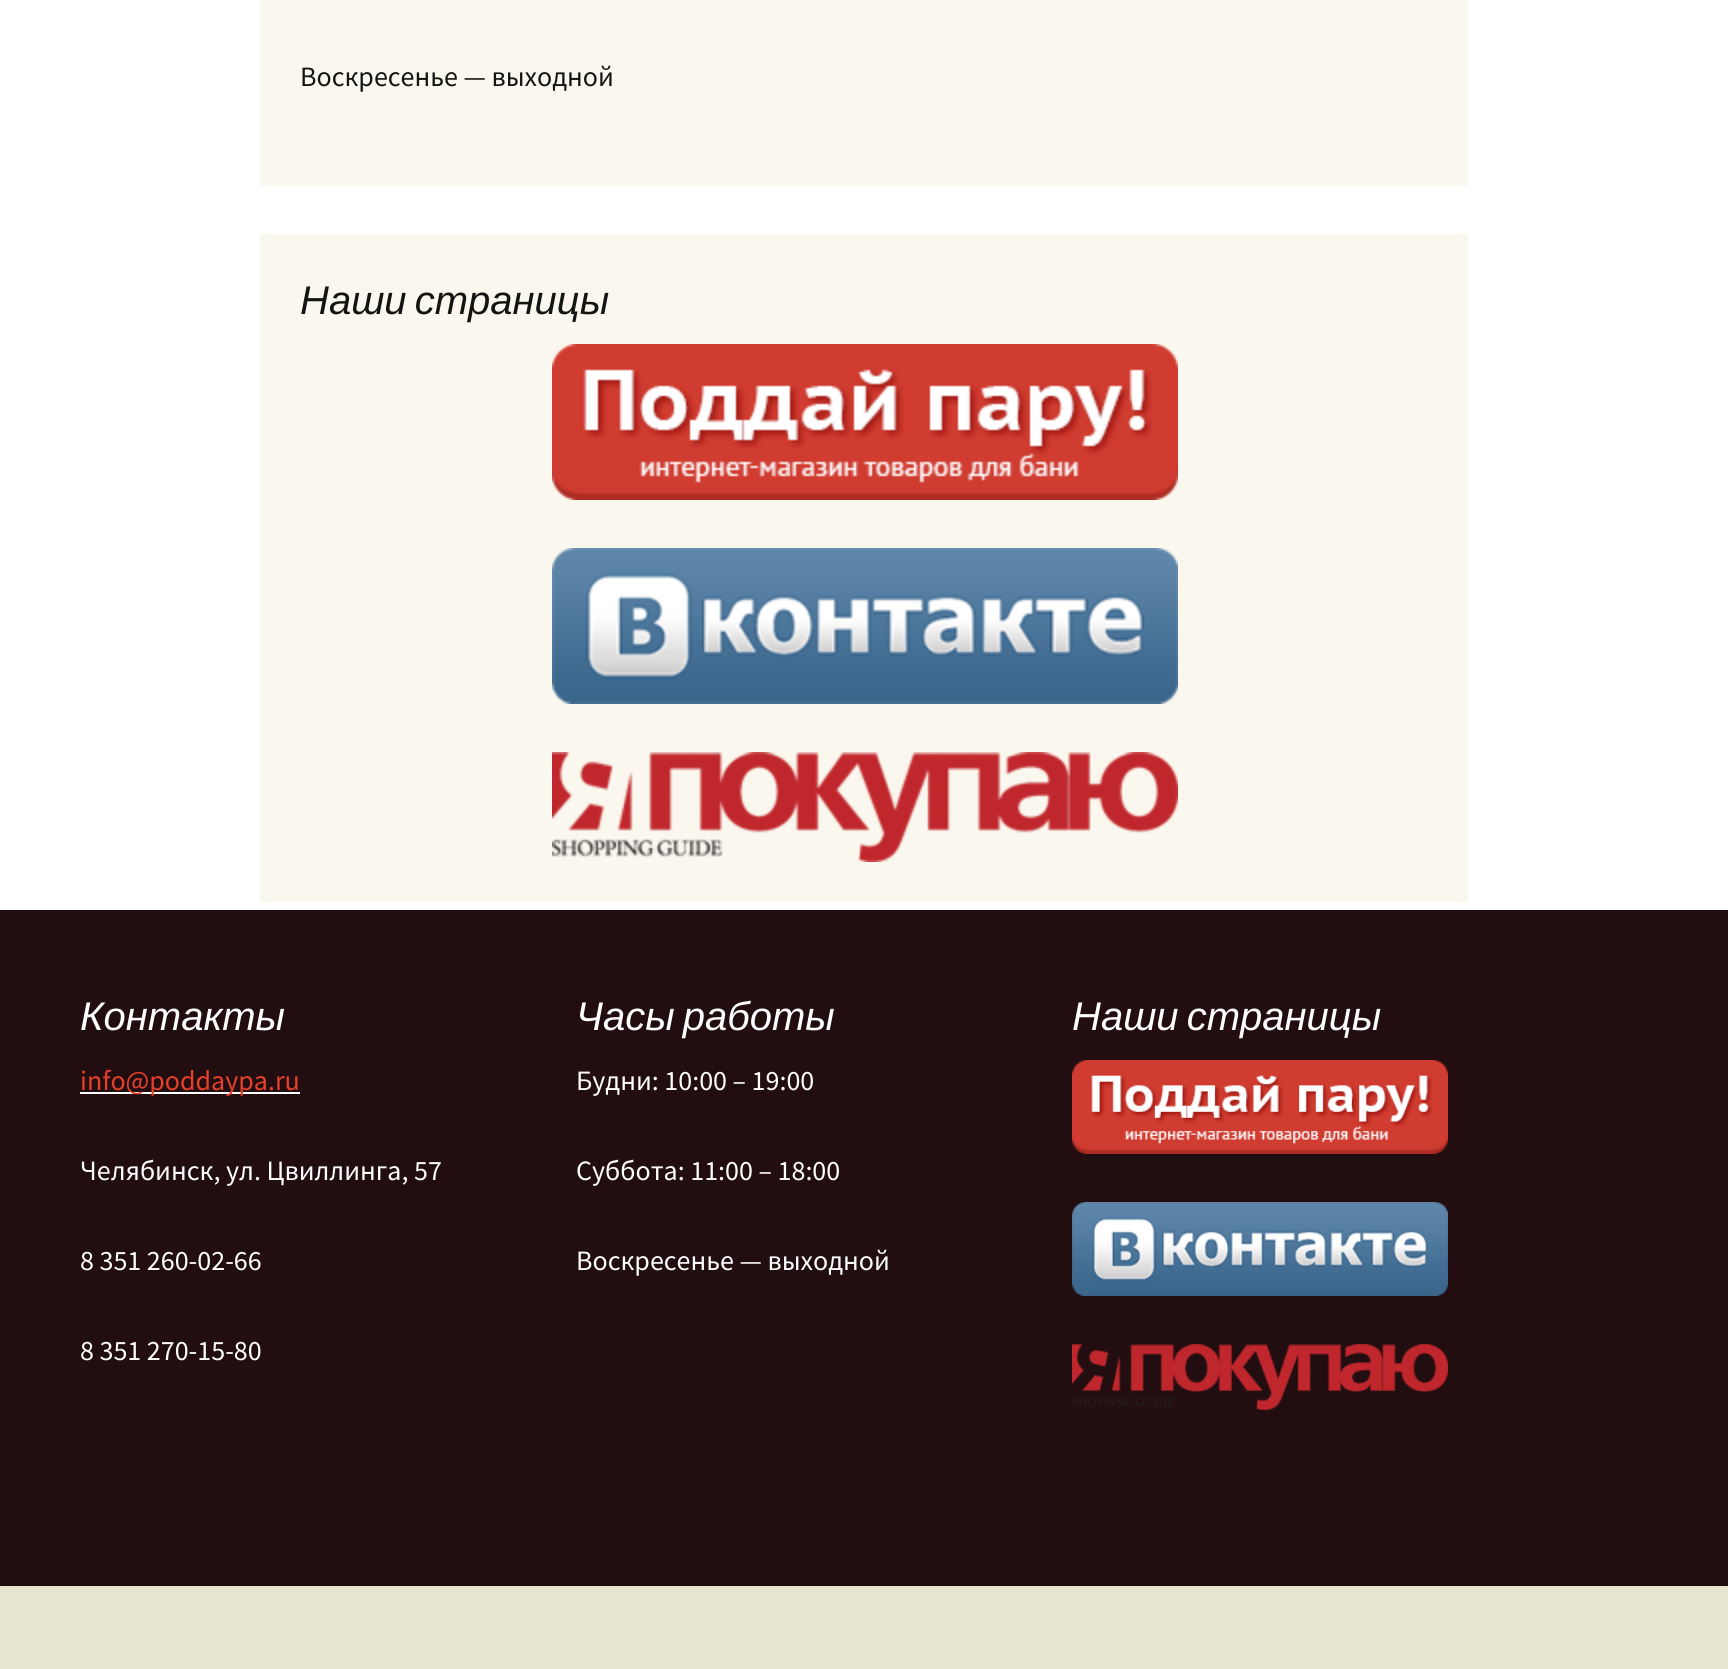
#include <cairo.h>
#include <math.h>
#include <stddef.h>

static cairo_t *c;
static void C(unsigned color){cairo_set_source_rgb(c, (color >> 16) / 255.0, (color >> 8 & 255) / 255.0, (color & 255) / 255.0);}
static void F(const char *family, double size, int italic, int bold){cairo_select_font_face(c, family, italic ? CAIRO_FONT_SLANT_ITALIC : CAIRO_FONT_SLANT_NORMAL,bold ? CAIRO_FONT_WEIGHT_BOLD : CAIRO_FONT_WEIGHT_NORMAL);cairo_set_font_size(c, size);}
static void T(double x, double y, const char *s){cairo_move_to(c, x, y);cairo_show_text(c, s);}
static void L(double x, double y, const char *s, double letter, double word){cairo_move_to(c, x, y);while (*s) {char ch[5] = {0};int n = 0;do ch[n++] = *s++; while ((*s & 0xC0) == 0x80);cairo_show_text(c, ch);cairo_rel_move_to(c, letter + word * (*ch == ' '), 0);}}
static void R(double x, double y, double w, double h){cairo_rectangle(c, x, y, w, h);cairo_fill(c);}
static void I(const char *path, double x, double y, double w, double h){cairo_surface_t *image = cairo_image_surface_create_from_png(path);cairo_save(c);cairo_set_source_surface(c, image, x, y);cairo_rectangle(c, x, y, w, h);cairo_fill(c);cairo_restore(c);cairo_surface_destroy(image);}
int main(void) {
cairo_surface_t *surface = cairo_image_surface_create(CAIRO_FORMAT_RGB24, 1728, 1669);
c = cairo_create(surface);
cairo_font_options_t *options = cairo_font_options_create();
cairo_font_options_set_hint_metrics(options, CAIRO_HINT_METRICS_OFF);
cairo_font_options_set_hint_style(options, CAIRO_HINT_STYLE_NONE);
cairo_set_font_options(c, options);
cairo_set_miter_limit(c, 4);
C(0xffffff);
cairo_paint(c);
C(0xfaf8ee);
R(260,0,1208,186);
F("Source Sans Pro",28,0,0);
C(0x141412);
T(300,86,"Воскресенье — выходной");
C(0xfaf8ee);
R(260,234,1208,668);
F("Liberation Sans",40,1,0);
C(0x141412);
L(300,314,"Наши страницы",0,-3);
I("1.png",552,344,626,156);
I("2.png",552,548,626,156);
I("3.png",552,752,626,110);
C(0xe8e5ce);
R(0,1586,1728,83);
C(0x220e10);
R(0,910,1728,676);
C(0xffffff);
T(80,1030,"Контакты");
R(80,1092,220,2);
F("Source Sans Pro",28,0,0);
C(0xe6402a);
T(80,1090,"info@poddaypa.ru");
C(0xffffff);
T(80,1180,"Челябинск, ул. Цвиллинга, 57");
T(80,1270,"8 351 260-02-66");
T(80,1360,"8 351 270-15-80");
F("Liberation Sans",40,1,0);
L(576,1030,"Часы работы",0,-3);
F("Source Sans Pro",28,0,0);
T(576,1090,"Будни: 10:00 – 19:00");
T(576,1180,"Суббота: 11:00 – 18:00");
T(576,1270,"Воскресенье — выходной");
F("Liberation Sans",40,1,0);
L(1072,1030,"Наши страницы",0,-3);
I("4.png",1072,1060,376,94);
I("5.png",1072,1202,376,94);
I("6.png",1072,1344,376,66);
cairo_surface_write_to_png(surface, "o.png");
cairo_font_options_destroy(options);
cairo_destroy(c);
cairo_surface_destroy(surface);
return 0;
}
